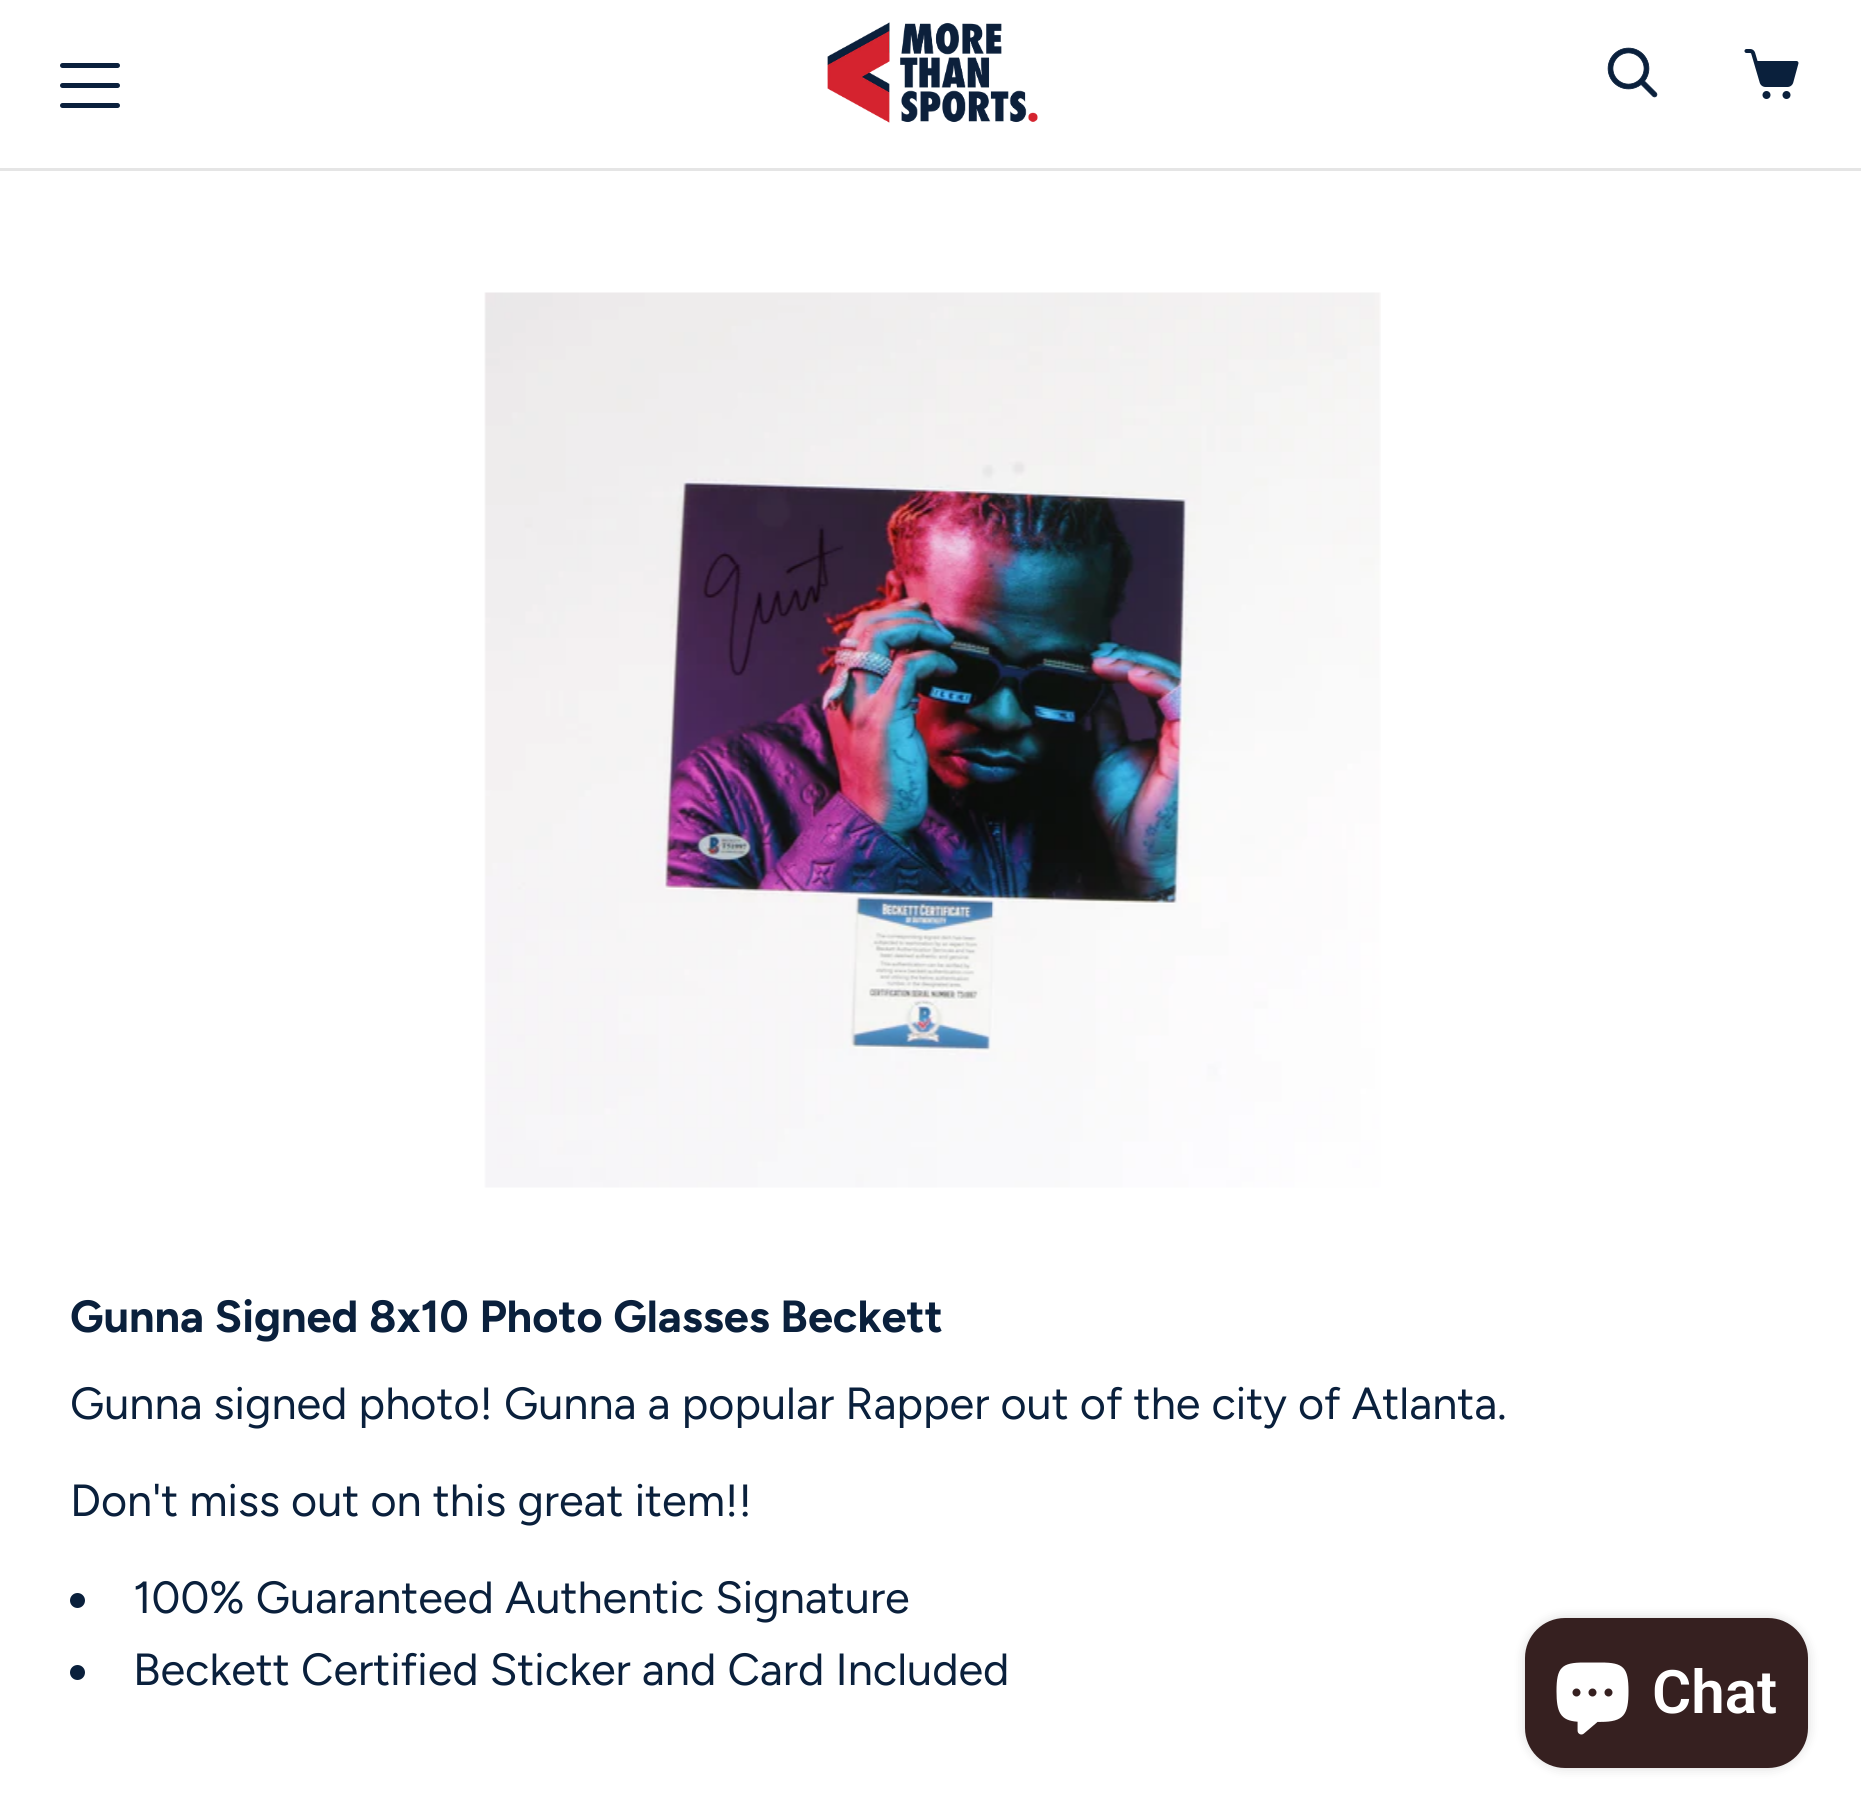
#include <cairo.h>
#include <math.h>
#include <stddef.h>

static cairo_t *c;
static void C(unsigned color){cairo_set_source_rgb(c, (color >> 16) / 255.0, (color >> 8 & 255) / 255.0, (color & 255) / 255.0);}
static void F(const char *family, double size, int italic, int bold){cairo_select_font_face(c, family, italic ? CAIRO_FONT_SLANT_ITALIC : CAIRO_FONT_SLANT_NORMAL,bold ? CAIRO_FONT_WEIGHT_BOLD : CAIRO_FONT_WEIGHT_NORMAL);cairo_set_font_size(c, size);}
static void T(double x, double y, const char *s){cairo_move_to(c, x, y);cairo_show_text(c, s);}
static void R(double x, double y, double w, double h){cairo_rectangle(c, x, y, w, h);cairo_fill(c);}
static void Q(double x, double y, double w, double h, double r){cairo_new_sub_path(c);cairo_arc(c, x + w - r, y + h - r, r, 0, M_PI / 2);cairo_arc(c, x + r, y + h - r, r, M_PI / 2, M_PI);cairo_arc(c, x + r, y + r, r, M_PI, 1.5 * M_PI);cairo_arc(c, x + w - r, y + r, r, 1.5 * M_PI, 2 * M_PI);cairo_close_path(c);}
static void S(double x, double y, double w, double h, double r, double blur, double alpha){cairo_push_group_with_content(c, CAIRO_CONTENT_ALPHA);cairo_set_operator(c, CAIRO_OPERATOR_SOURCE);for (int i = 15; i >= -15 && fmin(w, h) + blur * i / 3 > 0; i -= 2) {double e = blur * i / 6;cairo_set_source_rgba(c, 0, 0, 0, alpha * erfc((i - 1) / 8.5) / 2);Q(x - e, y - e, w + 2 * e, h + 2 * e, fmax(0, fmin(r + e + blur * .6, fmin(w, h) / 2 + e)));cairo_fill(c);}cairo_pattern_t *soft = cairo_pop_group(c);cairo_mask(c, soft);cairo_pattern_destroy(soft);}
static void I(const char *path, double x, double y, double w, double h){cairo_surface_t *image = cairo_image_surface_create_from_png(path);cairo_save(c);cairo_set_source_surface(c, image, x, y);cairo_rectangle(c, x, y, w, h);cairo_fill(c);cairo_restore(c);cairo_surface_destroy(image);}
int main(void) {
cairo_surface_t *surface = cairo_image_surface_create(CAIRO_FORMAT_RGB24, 1861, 1818);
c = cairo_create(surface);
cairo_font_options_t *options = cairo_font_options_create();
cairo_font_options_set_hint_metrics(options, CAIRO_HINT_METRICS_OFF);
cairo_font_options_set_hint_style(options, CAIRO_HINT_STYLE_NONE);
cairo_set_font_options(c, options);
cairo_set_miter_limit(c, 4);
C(0xffffff);
cairo_paint(c);
C(0xe5e5e5);
R(0,168,1861,3);
C(0x0a203c);
Q(60,63,60,5,2.5);
cairo_fill(c);
Q(60,83,60,5,2.5);
cairo_fill(c);
Q(60,103,60,5,2.5);
cairo_fill(c);
I("1.png",827,22,211,101);
I("2.png",1607,47,51,51);
I("3.png",1744,49,55,50);
I("4.png",484,292,897,896);
F("Figtree",45,0,1);
T(70,1332,"Gunna Signed 8x10 Photo Glasses Beckett");
F("Figtree",45,0,0);
T(70,1419,"Gunna signed photo! Gunna a popular Rapper out of the city of Atlanta.");
T(70,1516,"Don't miss out on this great item!!");
cairo_new_path(c);
cairo_arc(c,77.5,1600.5,7.5,0,2 * M_PI);
cairo_fill(c);
T(133,1613,"100% Guaranteed Authentic Signature");
cairo_new_path(c);
cairo_arc(c,77.5,1672.5,7.5,0,2 * M_PI);
cairo_fill(c);
T(133,1685,"Beckett Certified Sticker and Card Included");
C(0x000000);
S(1525,1618,283,150,40,6,.15);
C(0x362020);
Q(1525,1618,283,150,40);
cairo_fill(c);
I("5.png",1556,1662,73,73);
F("Roboto SemiBold",60,0,0);
C(0xffffff);
T(1652,1713,"Chat");
cairo_surface_write_to_png(surface, "o.png");
cairo_font_options_destroy(options);
cairo_destroy(c);
cairo_surface_destroy(surface);
return 0;
}
